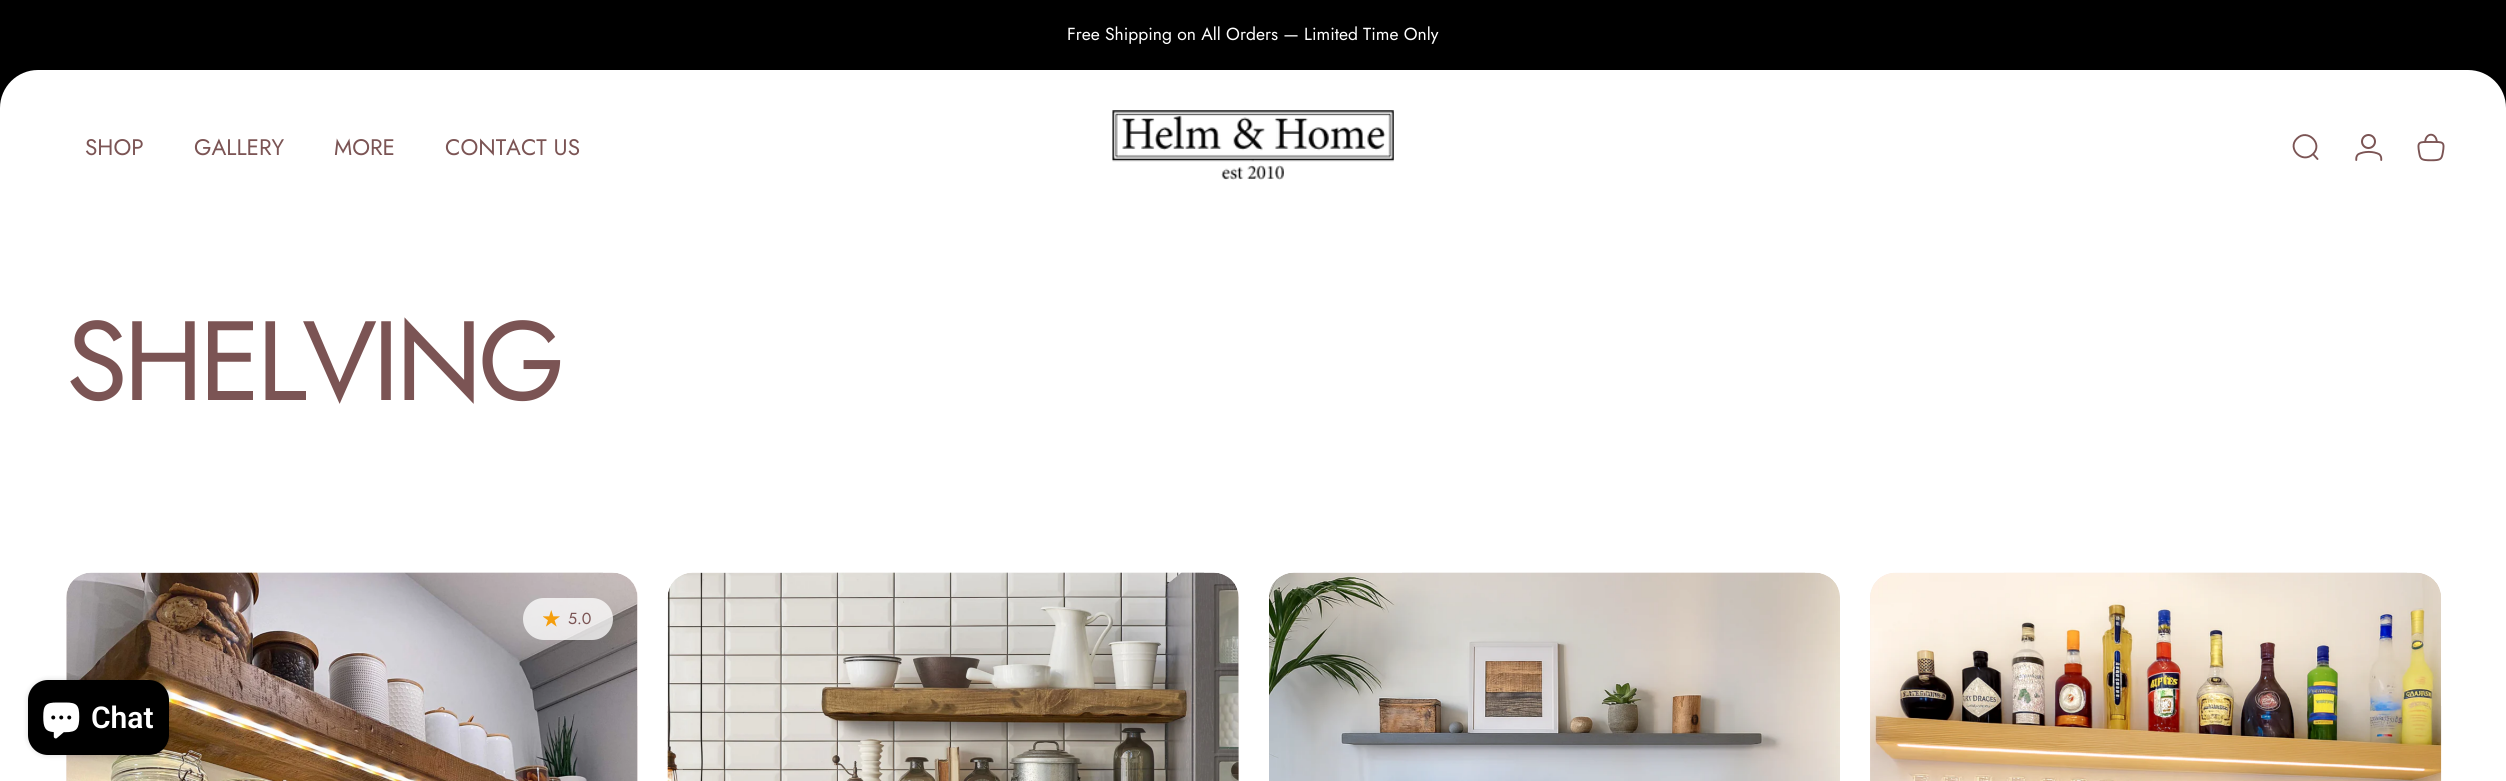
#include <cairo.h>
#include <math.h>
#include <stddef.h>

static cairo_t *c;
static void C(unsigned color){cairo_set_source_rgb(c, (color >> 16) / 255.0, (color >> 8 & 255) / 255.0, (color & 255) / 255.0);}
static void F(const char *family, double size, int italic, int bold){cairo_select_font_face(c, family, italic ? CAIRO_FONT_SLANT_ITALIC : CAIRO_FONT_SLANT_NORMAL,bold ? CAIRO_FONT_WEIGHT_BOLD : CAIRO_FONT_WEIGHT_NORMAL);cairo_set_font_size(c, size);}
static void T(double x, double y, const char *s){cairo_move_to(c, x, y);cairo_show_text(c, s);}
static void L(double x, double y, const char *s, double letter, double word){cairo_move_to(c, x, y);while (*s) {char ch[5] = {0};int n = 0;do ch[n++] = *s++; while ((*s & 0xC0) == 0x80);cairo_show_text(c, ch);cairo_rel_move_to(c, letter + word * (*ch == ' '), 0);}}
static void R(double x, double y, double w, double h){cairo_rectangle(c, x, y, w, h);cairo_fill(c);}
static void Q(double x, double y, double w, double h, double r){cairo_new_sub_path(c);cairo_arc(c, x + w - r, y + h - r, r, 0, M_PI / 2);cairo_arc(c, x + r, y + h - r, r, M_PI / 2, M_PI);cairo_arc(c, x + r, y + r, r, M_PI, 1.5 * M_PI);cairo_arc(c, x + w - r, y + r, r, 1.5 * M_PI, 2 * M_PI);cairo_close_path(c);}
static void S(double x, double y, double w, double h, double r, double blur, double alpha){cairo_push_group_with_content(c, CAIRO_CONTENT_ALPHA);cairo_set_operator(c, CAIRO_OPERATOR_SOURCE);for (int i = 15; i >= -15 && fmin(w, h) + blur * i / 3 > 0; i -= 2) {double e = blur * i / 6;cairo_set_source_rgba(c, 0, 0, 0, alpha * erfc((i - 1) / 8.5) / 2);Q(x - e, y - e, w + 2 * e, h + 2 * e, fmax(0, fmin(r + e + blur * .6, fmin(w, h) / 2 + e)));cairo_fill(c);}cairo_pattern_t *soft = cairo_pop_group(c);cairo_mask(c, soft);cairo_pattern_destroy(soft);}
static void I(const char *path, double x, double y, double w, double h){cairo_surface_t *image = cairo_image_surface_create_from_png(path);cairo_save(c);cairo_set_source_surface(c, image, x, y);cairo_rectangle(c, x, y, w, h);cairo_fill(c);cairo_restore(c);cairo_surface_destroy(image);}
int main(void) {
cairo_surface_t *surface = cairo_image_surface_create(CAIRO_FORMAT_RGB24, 2506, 781);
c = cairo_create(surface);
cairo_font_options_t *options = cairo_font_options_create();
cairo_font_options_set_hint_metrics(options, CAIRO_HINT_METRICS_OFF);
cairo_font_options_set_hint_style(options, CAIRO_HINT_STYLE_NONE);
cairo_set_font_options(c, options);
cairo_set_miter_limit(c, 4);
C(0xffffff);
cairo_paint(c);
C(0x000000);
R(0,0,2506,38);
cairo_new_path(c);
cairo_move_to(c,38,0);
cairo_line_to(c,2468,0);
cairo_curve_to(c,2489,0,2506,17,2506,38);
cairo_line_to(c,2506,108);
cairo_line_to(c,0,108);
cairo_line_to(c,0,38);
cairo_curve_to(c,0,17,17,0,38,0);
cairo_close_path(c);
cairo_fill(c);
F("Jost",17.5,0,0);
C(0xffffff);
T(1067,40,"Free Shipping on All Orders — Limited Time Only");
cairo_new_path(c);
cairo_move_to(c,38,70);
cairo_line_to(c,2468,70);
cairo_curve_to(c,2489,70,2506,87,2506,108);
cairo_line_to(c,2506,225);
cairo_line_to(c,0,225);
cairo_line_to(c,0,108);
cairo_curve_to(c,0,87,17,70,38,70);
cairo_close_path(c);
cairo_fill(c);
F("Jost",22.5,0,0);
C(0x7b5454);
T(85,155,"SHOP");
T(194,155,"GALLERY");
T(334,155,"MORE");
T(445,155,"CONTACT US");
I("1.png",1112,110,282,70);
cairo_new_path(c);
cairo_move_to(c,2317.5,159);
cairo_line_to(c,2313,154);
cairo_move_to(c,2313,154);
cairo_curve_to(c,2323.5,144,2307.5,128,2297,138.5);
cairo_curve_to(c,2286.5,148.5,2302.5,164.5,2313,154);
cairo_close_path(c);
cairo_set_line_width(c,1.9);
cairo_set_line_cap(c,CAIRO_LINE_CAP_ROUND);
cairo_stroke(c);
I("2.png",2355,134,28,27);
I("3.png",2417,133,28,29);
F("Jost",112.5,0,0);
L(66,400,"SHELVING",-4.5,0);
C(0xf4eded);
Q(66,573,572,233,25);
cairo_fill(c);
I("4.png",66,572,572,209);
cairo_set_source_rgba(c,1,1,1,0.75);
Q(523,598,90,42,21);
cairo_fill(c);
I("5.png",543,610,17,17);
F("Jost",16,0,0);
C(0x7b5454);
T(568,624,"5.0");
C(0xf4eded);
Q(668,573,571,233,25);
cairo_fill(c);
I("6.png",667,572,572,209);
Q(1269,573,571,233,25);
cairo_fill(c);
I("7.png",1269,572,571,209);
Q(1870,573,571,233,25);
cairo_fill(c);
I("8.png",1870,572,572,209);
C(0x000000);
S(28,680,141,75,20,3,.15);
C(0x000000);
Q(28,680,141,75,20);
cairo_fill(c);
I("9.png",43,702,37,37);
F("Roboto SemiBold",30,0,0);
C(0xffffff);
T(91,728,"Chat");
cairo_surface_write_to_png(surface, "o.png");
cairo_font_options_destroy(options);
cairo_destroy(c);
cairo_surface_destroy(surface);
return 0;
}
